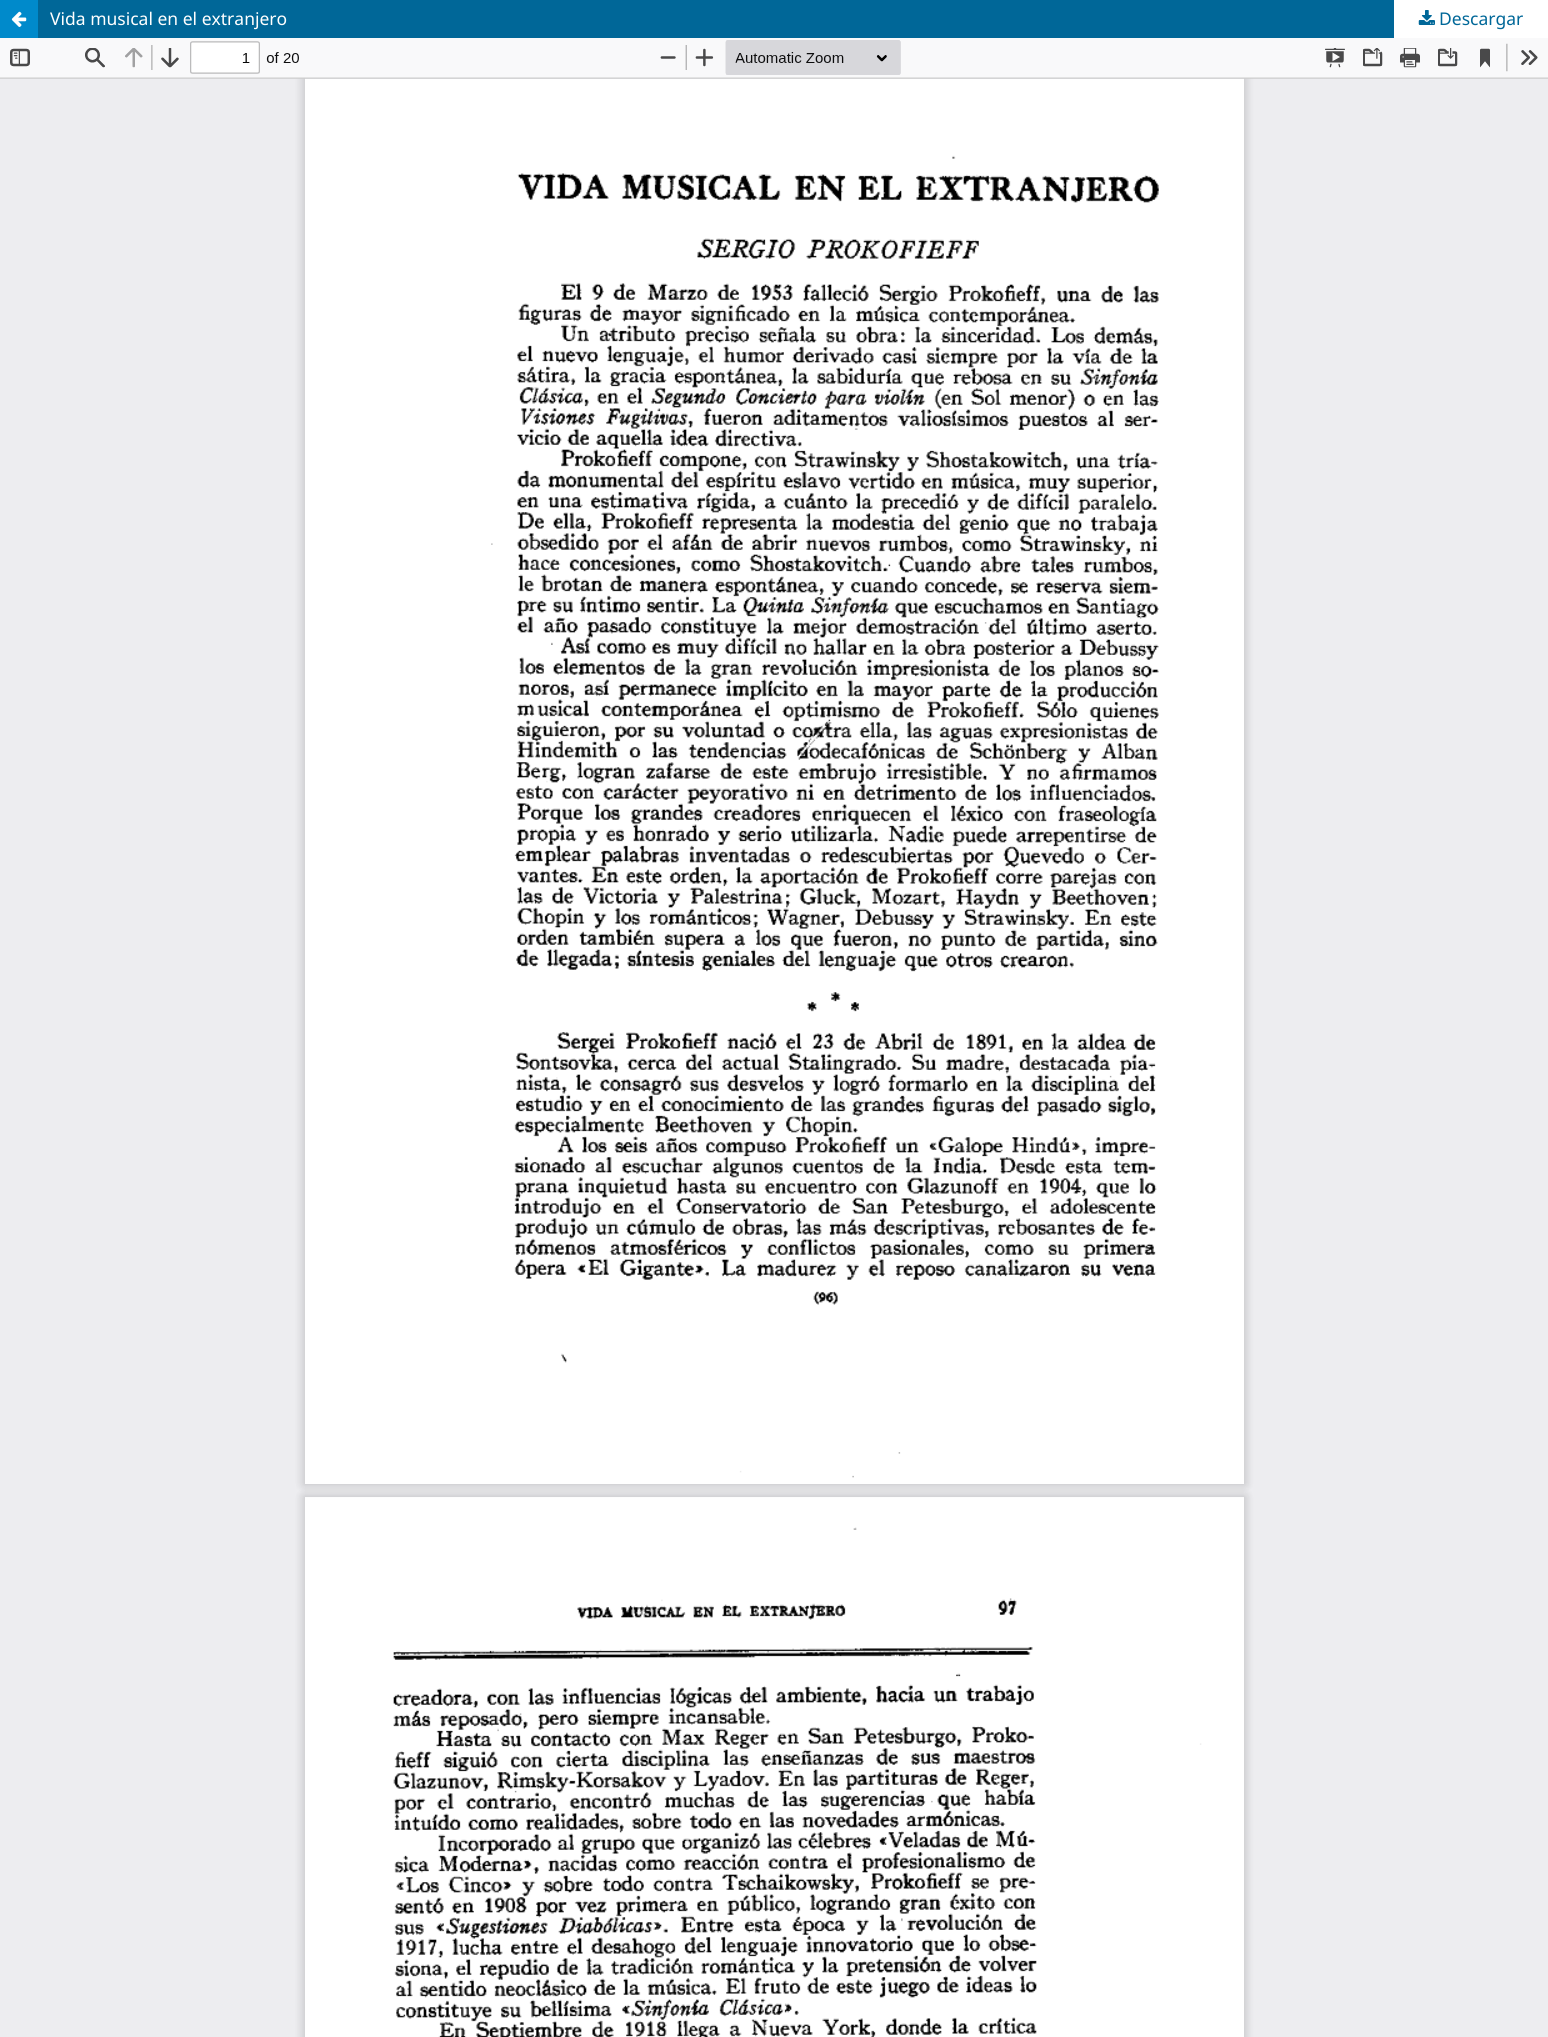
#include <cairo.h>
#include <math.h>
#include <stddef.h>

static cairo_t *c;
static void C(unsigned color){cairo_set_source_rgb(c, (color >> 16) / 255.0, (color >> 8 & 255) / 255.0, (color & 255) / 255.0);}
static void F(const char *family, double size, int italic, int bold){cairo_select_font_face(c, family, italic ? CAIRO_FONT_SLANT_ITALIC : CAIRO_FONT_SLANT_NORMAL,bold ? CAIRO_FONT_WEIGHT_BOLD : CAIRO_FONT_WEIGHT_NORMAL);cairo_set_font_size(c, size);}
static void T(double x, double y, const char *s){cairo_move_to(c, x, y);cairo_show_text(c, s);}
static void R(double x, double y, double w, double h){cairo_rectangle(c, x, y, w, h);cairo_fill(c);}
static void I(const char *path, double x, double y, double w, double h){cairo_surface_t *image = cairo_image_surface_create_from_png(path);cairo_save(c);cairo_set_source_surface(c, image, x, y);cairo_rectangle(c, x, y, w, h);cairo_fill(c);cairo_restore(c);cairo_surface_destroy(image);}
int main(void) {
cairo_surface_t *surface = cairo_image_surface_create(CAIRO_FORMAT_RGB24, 1548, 2037);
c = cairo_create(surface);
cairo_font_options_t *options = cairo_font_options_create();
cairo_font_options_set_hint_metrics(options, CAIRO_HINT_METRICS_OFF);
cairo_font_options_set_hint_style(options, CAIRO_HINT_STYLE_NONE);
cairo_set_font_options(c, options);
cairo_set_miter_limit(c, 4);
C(0xffffff);
cairo_paint(c);
C(0x006798);
R(38,0,1356,38);
C(0x008acb);
R(0,0,38,38);
I("1.png",11,11,16,16);
F("Noto Sans",17.5,0,0);
C(0xffffff);
T(50,25,"Vida musical en el extranjero");
I("2.png",1418,10,17,15);
C(0x006798);
T(1439,25,"Descargar");
I("3.png",0,38,1548,1999);
cairo_surface_write_to_png(surface, "o.png");
cairo_font_options_destroy(options);
cairo_destroy(c);
cairo_surface_destroy(surface);
return 0;
}
